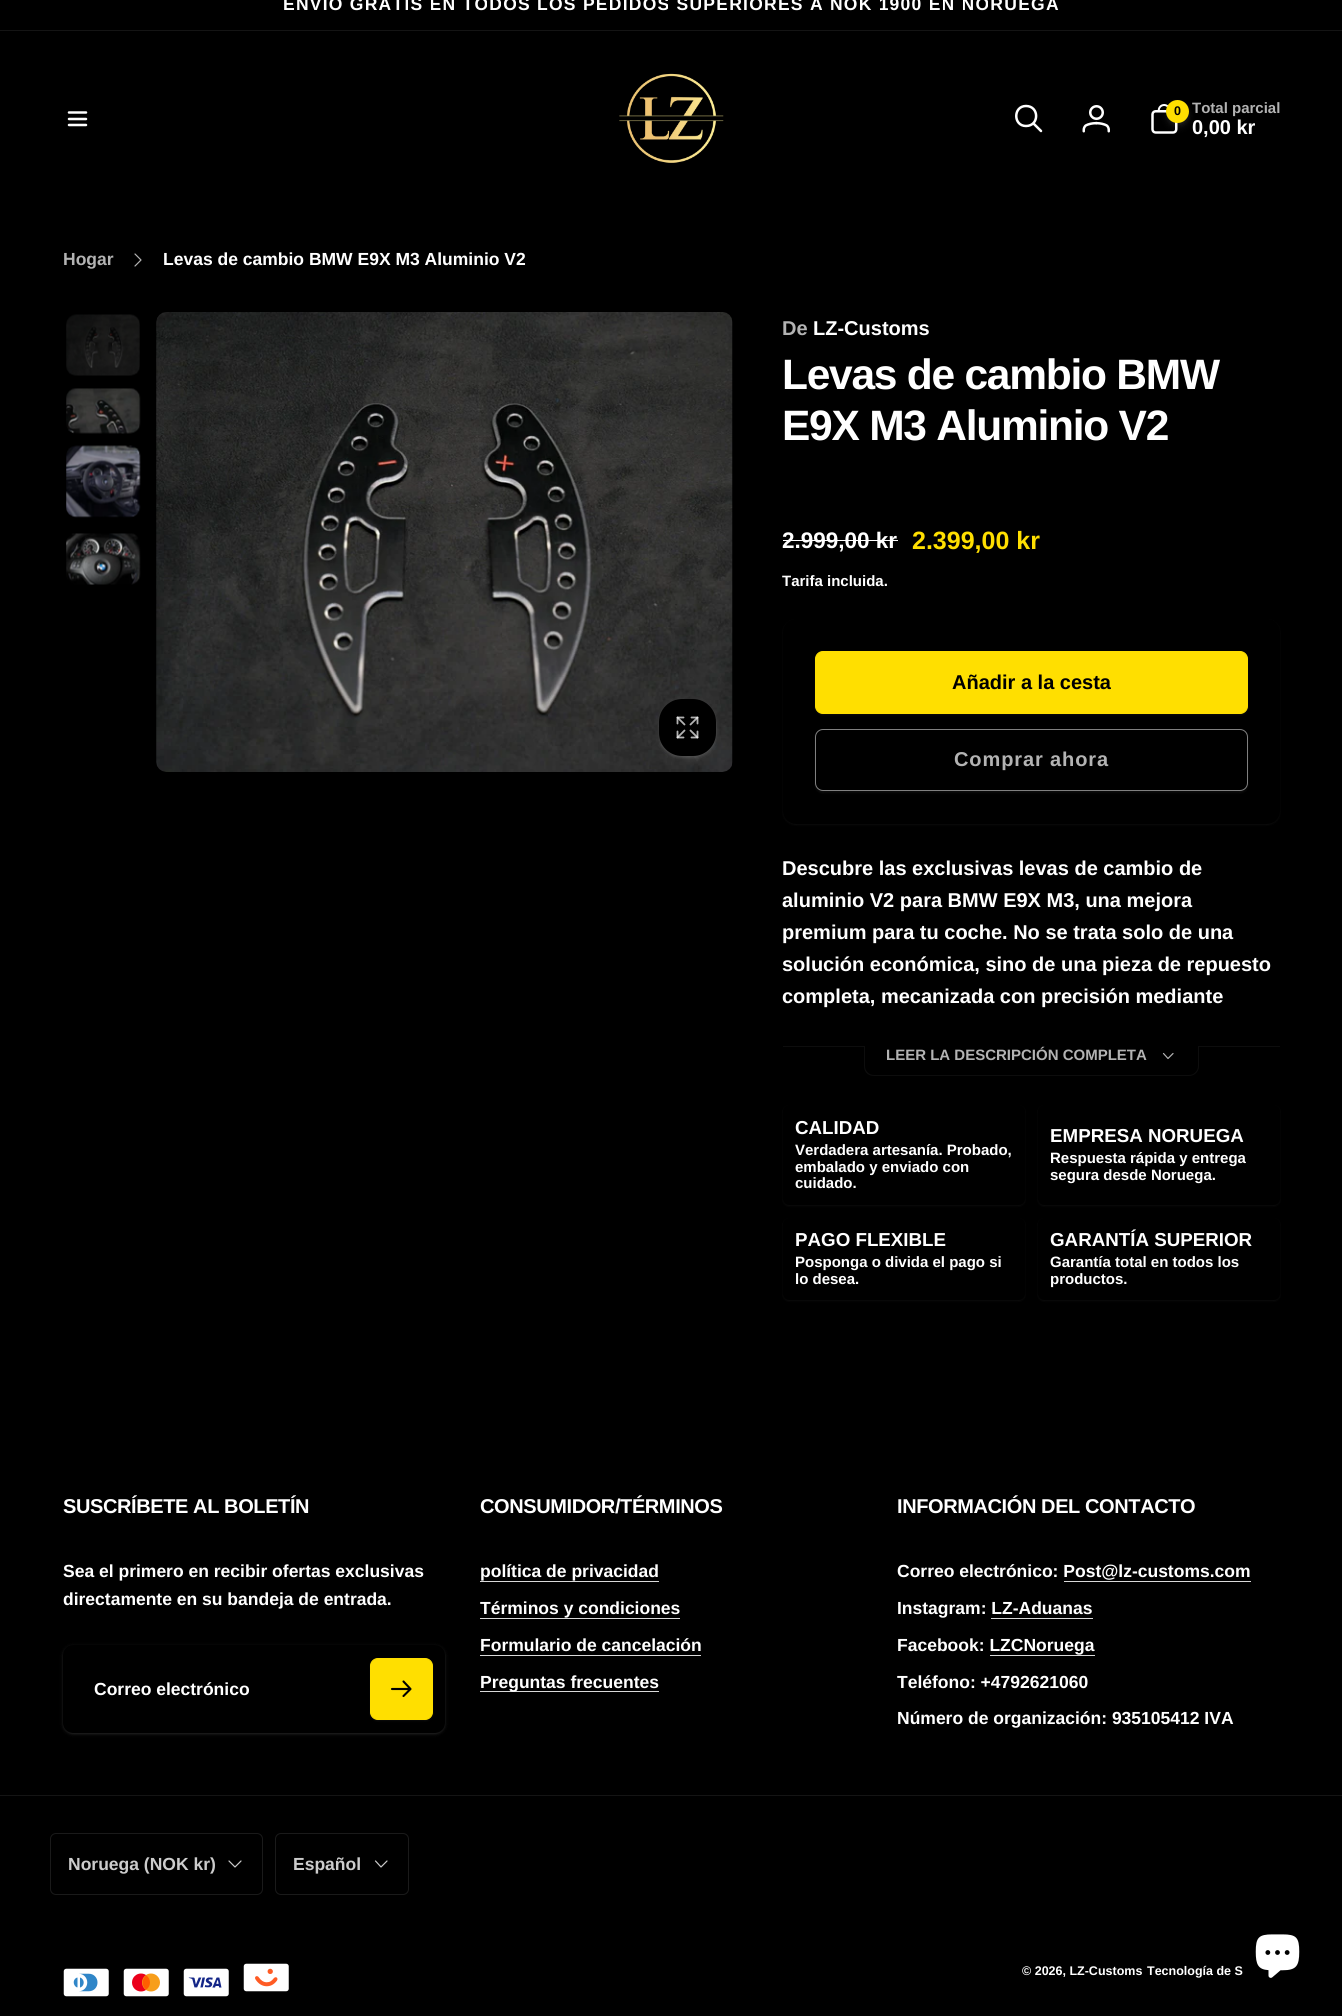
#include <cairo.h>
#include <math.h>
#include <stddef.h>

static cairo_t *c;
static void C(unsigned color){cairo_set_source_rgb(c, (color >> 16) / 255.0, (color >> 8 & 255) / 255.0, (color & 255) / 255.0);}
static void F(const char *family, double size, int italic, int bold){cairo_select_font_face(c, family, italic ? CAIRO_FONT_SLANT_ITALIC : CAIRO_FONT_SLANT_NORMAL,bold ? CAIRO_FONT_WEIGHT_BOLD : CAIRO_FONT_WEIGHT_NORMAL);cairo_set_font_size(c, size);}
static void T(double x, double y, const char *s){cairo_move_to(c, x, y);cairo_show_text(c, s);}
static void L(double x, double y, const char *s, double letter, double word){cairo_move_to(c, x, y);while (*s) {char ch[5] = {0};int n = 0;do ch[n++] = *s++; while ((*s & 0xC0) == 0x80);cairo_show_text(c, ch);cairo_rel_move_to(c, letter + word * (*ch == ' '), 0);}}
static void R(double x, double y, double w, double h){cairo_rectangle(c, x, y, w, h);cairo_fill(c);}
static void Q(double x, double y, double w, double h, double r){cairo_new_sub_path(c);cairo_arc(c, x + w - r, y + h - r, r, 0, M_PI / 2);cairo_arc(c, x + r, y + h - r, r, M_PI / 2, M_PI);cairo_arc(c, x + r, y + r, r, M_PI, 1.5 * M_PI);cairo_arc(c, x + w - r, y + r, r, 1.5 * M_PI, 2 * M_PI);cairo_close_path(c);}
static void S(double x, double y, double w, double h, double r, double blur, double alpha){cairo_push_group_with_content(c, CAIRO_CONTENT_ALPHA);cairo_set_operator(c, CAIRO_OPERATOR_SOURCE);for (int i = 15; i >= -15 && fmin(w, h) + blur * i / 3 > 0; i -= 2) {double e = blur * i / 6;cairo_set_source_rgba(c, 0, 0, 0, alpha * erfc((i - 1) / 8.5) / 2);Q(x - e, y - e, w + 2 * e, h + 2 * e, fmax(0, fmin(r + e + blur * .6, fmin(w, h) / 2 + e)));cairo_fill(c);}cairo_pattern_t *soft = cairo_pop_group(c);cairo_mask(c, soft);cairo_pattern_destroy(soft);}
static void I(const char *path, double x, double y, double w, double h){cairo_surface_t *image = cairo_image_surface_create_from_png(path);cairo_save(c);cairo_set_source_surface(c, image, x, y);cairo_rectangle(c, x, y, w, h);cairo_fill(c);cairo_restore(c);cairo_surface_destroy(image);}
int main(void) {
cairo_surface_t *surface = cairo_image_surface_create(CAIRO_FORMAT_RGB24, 1342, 2016);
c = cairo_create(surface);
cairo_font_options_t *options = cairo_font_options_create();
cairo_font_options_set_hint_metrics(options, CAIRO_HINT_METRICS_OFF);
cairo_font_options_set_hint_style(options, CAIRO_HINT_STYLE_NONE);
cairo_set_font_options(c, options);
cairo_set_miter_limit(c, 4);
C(0x000000);
cairo_paint(c);
C(0x141414);
R(0,30,1342,1);
F("Arimo",17.5,0,1);
C(0xffffff);
L(283,10,"ENVÍO GRATIS EN TODOS LOS PEDIDOS SUPERIORES A NOK 1900 EN NORUEGA",1.25,0);
cairo_new_path(c);
cairo_move_to(c,69,112.5);
cairo_line_to(c,86,112.5);
cairo_move_to(c,69,119);
cairo_line_to(c,86,119);
cairo_move_to(c,69,125);
cairo_line_to(c,86,125);
cairo_set_line_width(c,2.5);
cairo_set_line_cap(c,CAIRO_LINE_CAP_ROUND);
cairo_stroke(c);
I("1.png",619,73,105,90);
cairo_new_path(c);
cairo_move_to(c,1041,131);
cairo_line_to(c,1033.5,123.5);
cairo_move_to(c,1026,126);
cairo_curve_to(c,1039.5,126,1039.5,106,1026,106);
cairo_curve_to(c,1013,106,1013,126,1026,126);
cairo_close_path(c);
cairo_set_line_join(c,CAIRO_LINE_JOIN_ROUND);
cairo_stroke(c);
I("2.png",1082,105,28,28);
I("3.png",1151,104,27,30);
C(0xffffff);
S(1168,104,20,20,10,2.5,.06);
S(1168,106,20,20,10,4,.1);
C(0xffdf00);
cairo_arc(c,1177.5,111.5,11.5,0,2 * M_PI);
cairo_fill(c);
F("Arimo",12.5,0,1);
C(0x000000);
T(1174,115,"0");
F("Arimo",15,0,1);
C(0xb3b3b3);
T(1192,113,"Total parcial");
F("Arimo",20,0,1);
C(0xffffff);
T(1192,134,"0,00 kr");
F("Arimo",17.5,0,1);
C(0xb3b3b3);
T(63,265,"Hogar");
cairo_new_path(c);
cairo_move_to(c,135,254);
cairo_line_to(c,141,260);
cairo_line_to(c,135,266);
cairo_set_line_width(c,1.2);
cairo_stroke(c);
C(0xffffff);
T(163,265,"Levas de cambio BMW E9X M3 Aluminio V2");
I("4.png",66,314,74,62);
I("5.png",66,388,75,46);
I("6.png",66,445,75,73);
I("7.png",66,533,75,52);
I("8.png",156,312,577,460);
C(0xffffff);
S(659,700,57,58,23,1,.06);
S(659,700,57,58,23,2,.1);
C(0x000000);
Q(659,699,57,57,23);
cairo_fill(c);
I("9.png",676,716,23,23);
F("Arimo",20,0,1);
C(0xb3b3b3);
T(782,335,"De");
C(0xffffff);
T(813,335,"LZ-Customs");
F("Arimo",42.5,0,1);
L(782,389,"Levas de cambio BMW",-1.25,0);
L(782,440,"E9X M3 Aluminio V2",-1.25,0);
F("Arimo",22.5,0,1);
T(782,548,"2.999,00 kr");
R(783,540,115,1);
F("Arimo",25,0,1);
C(0xffdf00);
T(912,549,"2.399,00 kr");
F("Arimo",15,0,1);
C(0xffffff);
T(782,586,"Tarifa incluida.");
C(0xffffff);
S(783,620,497,205,13,1,.05);
C(0x000000);
Q(783,619,497,205,13);
cairo_fill(c);
C(0xffffff);
S(815,653,433,62,8,1,.05);
C(0xffdf00);
Q(815.5,651.5,432,62,7.5);
cairo_fill_preserve(c);
cairo_set_line_width(c,1);
cairo_set_line_cap(c,CAIRO_LINE_CAP_BUTT);
cairo_set_line_join(c,CAIRO_LINE_JOIN_MITER);
cairo_stroke(c);
F("Arimo",20,0,1);
C(0x000000);
T(952,689,"Añadir a la cesta");
cairo_save(c);
cairo_set_fill_rule(c,CAIRO_FILL_RULE_EVEN_ODD);
cairo_new_path(c);
cairo_move_to(c,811,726);
cairo_line_to(c,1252,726);
cairo_line_to(c,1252,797);
cairo_line_to(c,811,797);
cairo_close_path(c);
cairo_move_to(c,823,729);
cairo_line_to(c,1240,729);
cairo_curve_to(c,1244.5,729,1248,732.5,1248,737);
cairo_line_to(c,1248,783);
cairo_curve_to(c,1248,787.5,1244.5,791,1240,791);
cairo_line_to(c,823,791);
cairo_curve_to(c,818.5,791,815,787.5,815,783);
cairo_line_to(c,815,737);
cairo_curve_to(c,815,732.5,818.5,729,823,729);
cairo_close_path(c);
cairo_clip(c);
C(0xffffff);
S(815,730,433,63,8,1,.05);
cairo_restore(c);
Q(815.5,729.5,432,61,7.5);
cairo_set_source_rgba(c,1,1,1,0.5);
cairo_stroke(c);
C(0xb3b3b3);
L(954,766,"Comprar ahora",.9,0);
C(0xffffff);
T(782,875,"Descubre las exclusivas levas de cambio de");
T(782,907,"aluminio V2 para BMW E9X M3, una mejora");
T(782,939,"premium para tu coche. No se trata solo de una");
T(782,971,"solución económica, sino de una pieza de repuesto");
T(782,1003,"completa, mecanizada con precisión mediante");
C(0x0d0d0d);
R(783,1046,81,1);
cairo_set_fill_rule(c,CAIRO_FILL_RULE_EVEN_ODD);
cairo_new_path(c);
cairo_move_to(c,864,1046);
cairo_line_to(c,1199,1046);
cairo_line_to(c,1199,1066);
cairo_curve_to(c,1199,1072,1194,1076,1189,1076);
cairo_line_to(c,874,1076);
cairo_curve_to(c,868,1076,864,1072,864,1066);
cairo_close_path(c);
cairo_move_to(c,865,1046);
cairo_line_to(c,1198,1046);
cairo_line_to(c,1198,1066);
cairo_curve_to(c,1198,1071,1194,1075,1189,1075);
cairo_line_to(c,874,1075);
cairo_curve_to(c,869,1075,865,1071,865,1066);
cairo_close_path(c);
cairo_fill(c);
F("Arimo",15,0,1);
C(0xb3b3b3);
T(886,1060,"LEER LA DESCRIPCIÓN COMPLETA");
cairo_new_path(c);
cairo_move_to(c,1173,1053.5);
cairo_line_to(c,1168,1058.5);
cairo_line_to(c,1163.5,1053.5);
cairo_set_line_width(c,1.2);
cairo_set_line_cap(c,CAIRO_LINE_CAP_ROUND);
cairo_set_line_join(c,CAIRO_LINE_JOIN_ROUND);
cairo_stroke(c);
C(0x0d0d0d);
R(1199,1046,81,1);
C(0xffffff);
S(783,1106,242,100,6,1,.05);
C(0x000000);
Q(783,1105,242,100,6);
cairo_fill(c);
F("Arimo",18.75,0,1);
C(0xffffff);
T(795,1134,"CALIDAD");
F("Arimo",15,0,1);
T(795,1155,"Verdadera artesanía. Probado,");
T(795,1172,"embalado y enviado con");
T(795,1188,"cuidado.");
C(0xffffff);
S(1038,1106,242,100,6,1,.05);
C(0x000000);
Q(1038,1105,242,100,6);
cairo_fill(c);
F("Arimo",18.75,0,1);
C(0xffffff);
T(1050,1142,"EMPRESA NORUEGA");
F("Arimo",15,0,1);
T(1050,1163,"Respuesta rápida y entrega");
T(1050,1180,"segura desde Noruega.");
C(0xffffff);
S(783,1219,242,82,6,1,.05);
C(0x000000);
Q(783,1218,242,82,6);
cairo_fill(c);
F("Arimo",18.75,0,1);
C(0xffffff);
T(795,1246,"PAGO FLEXIBLE");
F("Arimo",15,0,1);
T(795,1267,"Posponga o divida el pago si");
T(795,1284,"lo desea.");
C(0xffffff);
S(1038,1219,242,82,6,1,.05);
C(0x000000);
Q(1038,1218,242,82,6);
cairo_fill(c);
F("Arimo",18.75,0,1);
C(0xffffff);
T(1050,1246,"GARANTÍA SUPERIOR");
F("Arimo",15,0,1);
T(1050,1267,"Garantía total en todos los");
T(1050,1284,"productos.");
F("Arimo",20,0,1);
L(63,1513,"SUSCRÍBETE AL BOLETÍN",-.4,0);
F("Arimo",17.5,0,1);
T(63,1577,"Sea el primero en recibir ofertas exclusivas");
T(63,1605,"directamente en su bandeja de entrada.");
C(0xffffff);
S(63,1646,382,88,10,2,.1);
S(63,1646,382,88,10,1,.06);
C(0x000000);
Q(63,1645,382,88,10);
cairo_fill(c);
C(0xffffff);
T(94,1695,"Correo electrónico");
C(0xffffff);
S(370,1659,63,62,8,1,.05);
C(0xffdf00);
Q(370.5,1658.5,62,61,7.5);
cairo_fill_preserve(c);
cairo_set_line_width(c,1);
cairo_set_line_cap(c,CAIRO_LINE_CAP_BUTT);
cairo_set_line_join(c,CAIRO_LINE_JOIN_MITER);
cairo_stroke(c);
cairo_new_path(c);
cairo_move_to(c,403.5,1681.5);
cairo_line_to(c,410.5,1689);
cairo_move_to(c,410.5,1689);
cairo_line_to(c,403.5,1696);
cairo_move_to(c,410.5,1689);
cairo_line_to(c,392,1689);
C(0x000000);
cairo_set_line_width(c,2.1);
cairo_set_line_cap(c,CAIRO_LINE_CAP_ROUND);
cairo_set_line_join(c,CAIRO_LINE_JOIN_ROUND);
cairo_stroke(c);
F("Arimo",20,0,1);
C(0xffffff);
L(480,1513,"CONSUMIDOR/TÉRMINOS",-.4,0);
F("Arimo",17.5,0,1);
T(480,1577,"política de privacidad");
C(0xd9d9d9);
R(480,1581,179,1);
C(0xffffff);
T(480,1614,"Términos y condiciones");
C(0xd9d9d9);
R(480,1618,200,1);
C(0xffffff);
T(480,1651,"Formulario de cancelación");
C(0xd9d9d9);
R(480,1655,221,1);
R(480,1691,179,1);
C(0xffffff);
T(480,1688,"Preguntas frecuentes");
F("Arimo",20,0,1);
L(897,1513,"INFORMACIÓN DEL CONTACTO",-.4,0);
F("Arimo",17.5,0,1);
T(897,1577,"Correo electrónico: Post@lz-customs.com");
C(0xd9d9d9);
R(1064,1581,187,1);
C(0xffffff);
T(897,1614,"Instagram: LZ-Aduanas");
C(0xd9d9d9);
R(991,1618,102,1);
C(0xffffff);
T(897,1651,"Facebook: LZCNoruega");
C(0xd9d9d9);
R(990,1655,105,1);
C(0xffffff);
T(897,1688,"Teléfono: +4792621060");
T(897,1724,"Número de organización: 935105412 IVA");
C(0x141414);
R(0,1795,1342,1);
Q(50.5,1833.5,212,61,5.5);
C(0x1a1a1a);
cairo_set_line_width(c,1);
cairo_set_line_cap(c,CAIRO_LINE_CAP_BUTT);
cairo_set_line_join(c,CAIRO_LINE_JOIN_MITER);
cairo_stroke(c);
C(0xcccccc);
T(68,1870,"Noruega (NOK kr)");
cairo_new_path(c);
cairo_move_to(c,241,1861);
cairo_line_to(c,235,1867);
cairo_line_to(c,229,1861);
cairo_set_line_width(c,1.2);
cairo_set_line_cap(c,CAIRO_LINE_CAP_ROUND);
cairo_set_line_join(c,CAIRO_LINE_JOIN_ROUND);
cairo_stroke(c);
Q(275.5,1833.5,133,61,5.5);
C(0x1a1a1a);
cairo_set_line_width(c,1);
cairo_set_line_cap(c,CAIRO_LINE_CAP_BUTT);
cairo_set_line_join(c,CAIRO_LINE_JOIN_MITER);
cairo_stroke(c);
C(0xcccccc);
T(293,1870,"Español");
cairo_new_path(c);
cairo_move_to(c,387,1861);
cairo_line_to(c,381,1867);
cairo_line_to(c,375.5,1861);
cairo_set_line_width(c,1.2);
cairo_set_line_cap(c,CAIRO_LINE_CAP_ROUND);
cairo_set_line_join(c,CAIRO_LINE_JOIN_ROUND);
cairo_stroke(c);
I("10.png",63,1968,46,29);
I("11.png",123,1968,46,29);
I("12.png",183,1968,46,29);
I("13.png",243,1963,46,29);
F("Arimo",12.5,0,1);
C(0xffffff);
T(1022,1975,"© 2026, LZ-Customs");
T(1147,1975,"Tecnología de S");
I("14.png",1255,1934,45,44);
cairo_surface_write_to_png(surface, "o.png");
cairo_font_options_destroy(options);
cairo_destroy(c);
cairo_surface_destroy(surface);
return 0;
}
